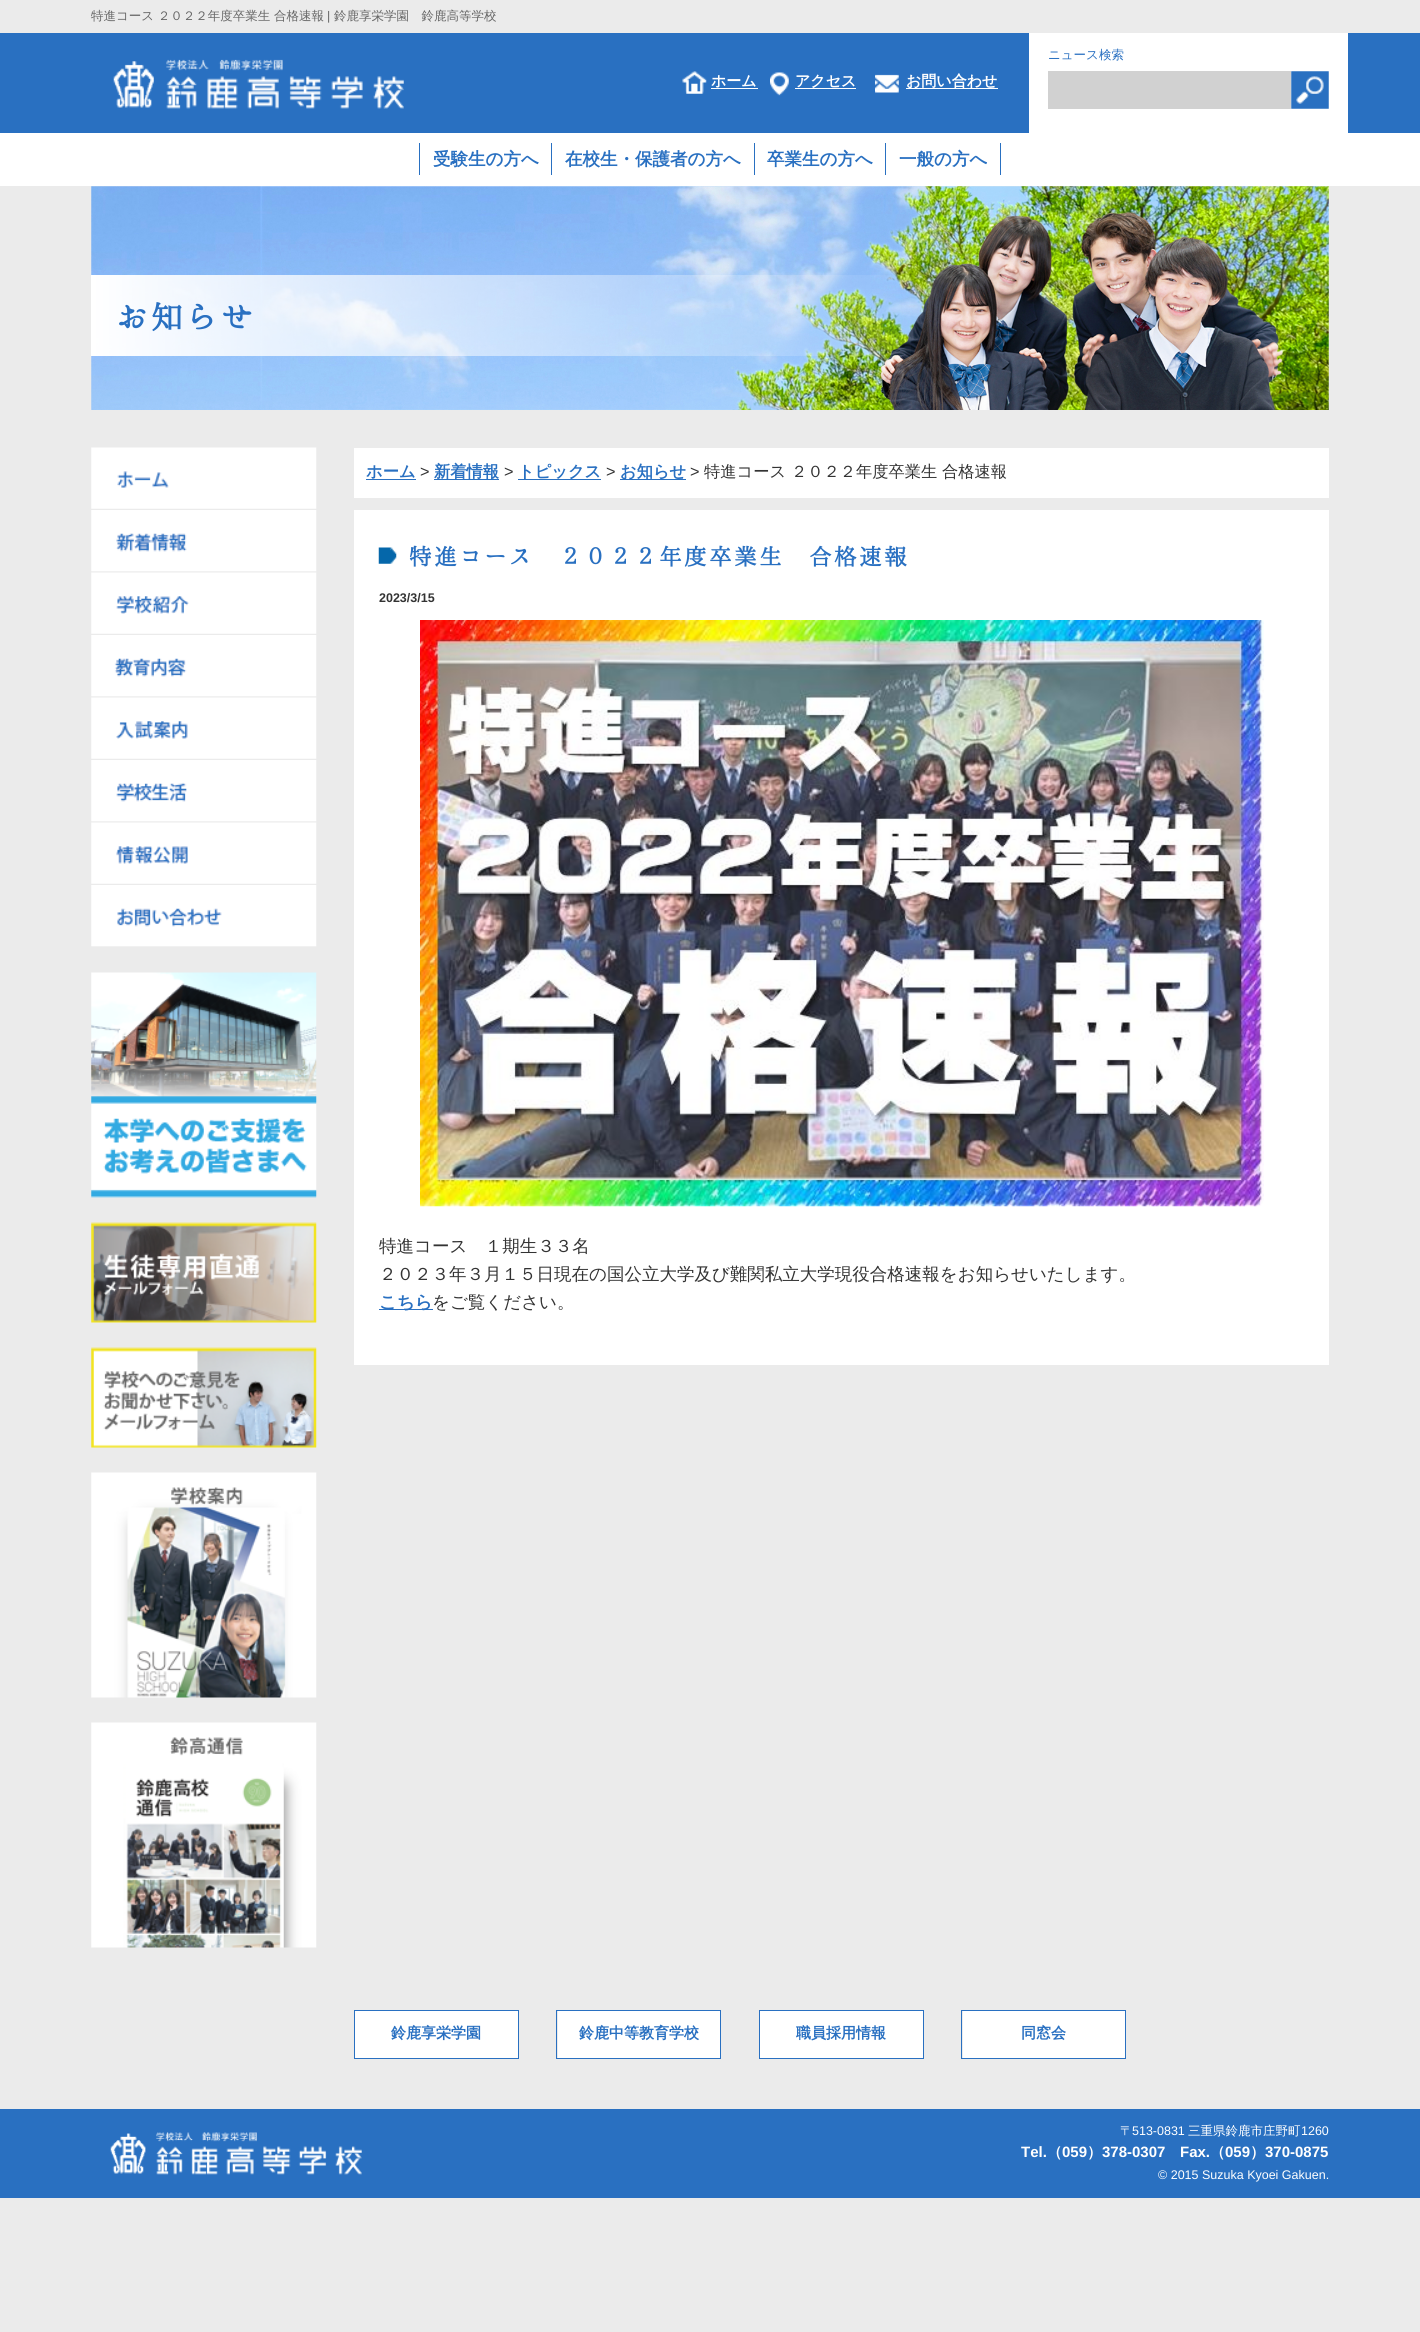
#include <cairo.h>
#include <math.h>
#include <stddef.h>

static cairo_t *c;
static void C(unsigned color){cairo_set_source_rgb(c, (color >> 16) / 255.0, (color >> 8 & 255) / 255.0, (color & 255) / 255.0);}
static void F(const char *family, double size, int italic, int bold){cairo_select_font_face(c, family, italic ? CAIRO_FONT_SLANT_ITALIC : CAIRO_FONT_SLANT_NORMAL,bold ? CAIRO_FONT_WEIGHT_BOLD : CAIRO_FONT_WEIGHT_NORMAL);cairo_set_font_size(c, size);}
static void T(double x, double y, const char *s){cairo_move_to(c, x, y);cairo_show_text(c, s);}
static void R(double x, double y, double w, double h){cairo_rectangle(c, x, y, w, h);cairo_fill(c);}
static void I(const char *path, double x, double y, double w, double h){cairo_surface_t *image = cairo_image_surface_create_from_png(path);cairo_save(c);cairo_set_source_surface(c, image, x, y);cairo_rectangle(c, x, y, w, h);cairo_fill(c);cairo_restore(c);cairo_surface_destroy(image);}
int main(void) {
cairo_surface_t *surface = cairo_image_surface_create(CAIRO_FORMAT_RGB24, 1420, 2332);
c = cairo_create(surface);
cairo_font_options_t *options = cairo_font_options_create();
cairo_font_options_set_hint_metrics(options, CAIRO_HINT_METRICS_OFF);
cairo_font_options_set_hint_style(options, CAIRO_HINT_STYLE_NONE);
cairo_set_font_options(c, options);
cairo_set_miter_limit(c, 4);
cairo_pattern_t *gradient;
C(0xebebeb);
cairo_paint(c);
F("WenQuanYi Zen Hei Medium",12.5,0,0);
C(0x666666);
T(91,20,"特進コース ２０２２年度卒業生 合格速報");
F("Liberation Sans",12.5,0,0);
T(327,20,"|");
F("WenQuanYi Zen Hei Medium",12.5,0,0);
T(334,20,"鈴鹿享栄学園　鈴鹿高等学校");
C(0x2970c1);
R(0,33,1420,100);
C(0xffffff);
R(1029,33,319,100);
C(0x2970c1);
T(1048,59,"ニュース検索");
C(0xd1d1d1);
R(1048,71,243,38);
I("1.png",1291,71,38,38);
I("2.png",113,59,291,50);
I("3.png",682,71,25,23);
F("WenQuanYi Zen Hei",15,0,1);
C(0xffffff);
T(711,86,"ホーム");
R(711,88,47,1);
I("4.png",770,72,19,24);
T(795,86,"アクセス");
R(795,88,61,1);
I("5.png",875,74,24,19);
R(906,88,92,1);
T(906,86,"お問い合わせ");
R(0,133,1420,53);
F("WenQuanYi Zen Hei",17.5,0,1);
C(0x2970c1);
T(433,165,"受験生の方へ");
R(419,143,1,32);
T(565,165,"在校生・保護者の方へ");
R(551,143,1,32);
T(767,165,"卒業生の方へ");
R(754,143,1,32);
T(899,165,"一般の方へ");
R(1000,143,1,32);
R(885,143,1,32);
I("6.png",91,186,1238,224);
gradient = cairo_pattern_create_linear(91,316,929,316);
cairo_pattern_add_color_stop_rgba(gradient,0,1,1,1,1);
cairo_pattern_add_color_stop_rgba(gradient,.34,1,1,1,.66);
cairo_pattern_add_color_stop_rgba(gradient,1,1,1,1,0);
cairo_set_source(c,gradient);
cairo_pattern_destroy(gradient);
R(91,275,820,81);
F("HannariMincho",35,0,1);
C(0x2970c1);
T(116,329,"お知らせ");
I("7.png",91,447,226,62);
I("8.png",91,510,226,62);
I("9.png",91,572,226,62);
I("10.png",91,635,226,62);
I("11.png",91,697,226,62);
I("12.png",91,760,226,62);
I("13.png",91,822,226,62);
I("14.png",91,885,226,62);
I("15.png",91,972,226,226);
I("16.png",91,1222,226,101);
I("17.png",91,1347,226,101);
I("18.png",91,1472,226,226);
I("19.png",91,1722,226,226);
C(0xffffff);
R(354,448,975,50);
F("WenQuanYi Zen Hei",16.25,0,1);
C(0x2970c1);
T(366,477,"ホーム");
R(366,479,50,1);
F("Liberation Sans",16.25,0,0);
C(0x333333);
T(420,477,">");
C(0x2970c1);
R(434,479,65,1);
F("WenQuanYi Zen Hei",16.25,0,1);
T(434,477,"新着情報");
F("Liberation Sans",16.25,0,0);
C(0x333333);
T(504,477,">");
C(0x2970c1);
R(518,479,83,1);
F("WenQuanYi Zen Hei",16.25,0,1);
T(518,477,"トピックス");
F("Liberation Sans",16.25,0,0);
C(0x333333);
T(606,477,">");
C(0x2970c1);
R(620,479,66,1);
F("WenQuanYi Zen Hei",16.25,0,1);
T(620,477,"お知らせ");
F("Liberation Sans",16.25,0,0);
C(0x333333);
T(690,477,">");
F("WenQuanYi Zen Hei Medium",16.25,0,0);
T(704,477,"特進コース ２０２２年度卒業生 合格速報");
C(0xffffff);
R(354,510,975,855);
I("20.png",378,547,19,17);
F("HannariMincho",25,0,1);
C(0x2970c1);
T(409,565,"特進コース ２０２２年度卒業生 合格速報");
F("Liberation Sans",12.5,0,1);
C(0x333333);
T(379,602,"2023/3/15");
I("21.png",420,620,844,587);
F("WenQuanYi Zen Hei Medium",17.5,0,0);
T(379,1252,"特進コース　１期生３３名");
T(379,1280,"２０２３年３月１５日現在の国公立大学及び難関私立大学現役合格速報をお知らせいたします。");
C(0x2970c1);
R(379,1309,54,1);
F("WenQuanYi Zen Hei",17.5,0,1);
T(379,1308,"こちら");
F("WenQuanYi Zen Hei Medium",17.5,0,0);
C(0x333333);
T(432,1308,"をご覧ください。");
cairo_rectangle(c,354.5,2010.5,164,48);
C(0x2970c1);
cairo_set_line_width(c,1);
cairo_stroke(c);
C(0xffffff);
R(355,2011,163,47);
F("WenQuanYi Zen Hei",15,0,1);
C(0x2970c1);
T(391,2038,"鈴鹿享栄学園");
cairo_rectangle(c,556.5,2010.5,164,48);
cairo_stroke(c);
C(0xffffff);
R(558,2011,162,47);
C(0x2970c1);
T(579,2038,"鈴鹿中等教育学校");
cairo_rectangle(c,759.5,2010.5,164,48);
cairo_stroke(c);
C(0xffffff);
R(760,2011,163,47);
C(0x2970c1);
T(796,2038,"職員採用情報");
cairo_rectangle(c,961.5,2010.5,164,48);
cairo_stroke(c);
C(0xffffff);
R(963,2011,162,47);
C(0x2970c1);
T(1021,2038,"同窓会");
R(0,2109,1420,89);
I("22.png",110,2132,252,43);
F("WenQuanYi Zen Hei Medium",12.5,0,0);
C(0xffffff);
T(1120,2135,"〒");
F("Liberation Sans",12.5,0,0);
T(1132,2135,"513-0831");
F("WenQuanYi Zen Hei Medium",12.5,0,0);
T(1188,2135,"三重県鈴鹿市庄野町");
F("Liberation Sans",12.5,0,0);
T(1301,2135,"1260");
F("Liberation Sans",15,0,1);
T(1021,2157,"Tel.");
F("WenQuanYi Zen Hei",15,0,1);
T(1047,2157,"（");
F("Liberation Sans",15,0,1);
T(1062,2157,"059");
F("WenQuanYi Zen Hei",15,0,1);
T(1087,2157,"）");
F("Liberation Sans",15,0,1);
T(1102,2157,"378-0307");
T(1180,2157,"Fax.");
F("WenQuanYi Zen Hei",15,0,1);
T(1210,2157,"（");
F("Liberation Sans",15,0,1);
T(1225,2157,"059");
F("WenQuanYi Zen Hei",15,0,1);
T(1250,2157,"）");
F("Liberation Sans",15,0,1);
T(1265,2157,"370-0875");
F("Liberation Sans",12.5,0,0);
T(1158,2179,"© 2015 Suzuka Kyoei Gakuen.");
cairo_surface_write_to_png(surface, "o.png");
cairo_font_options_destroy(options);
cairo_destroy(c);
cairo_surface_destroy(surface);
return 0;
}
